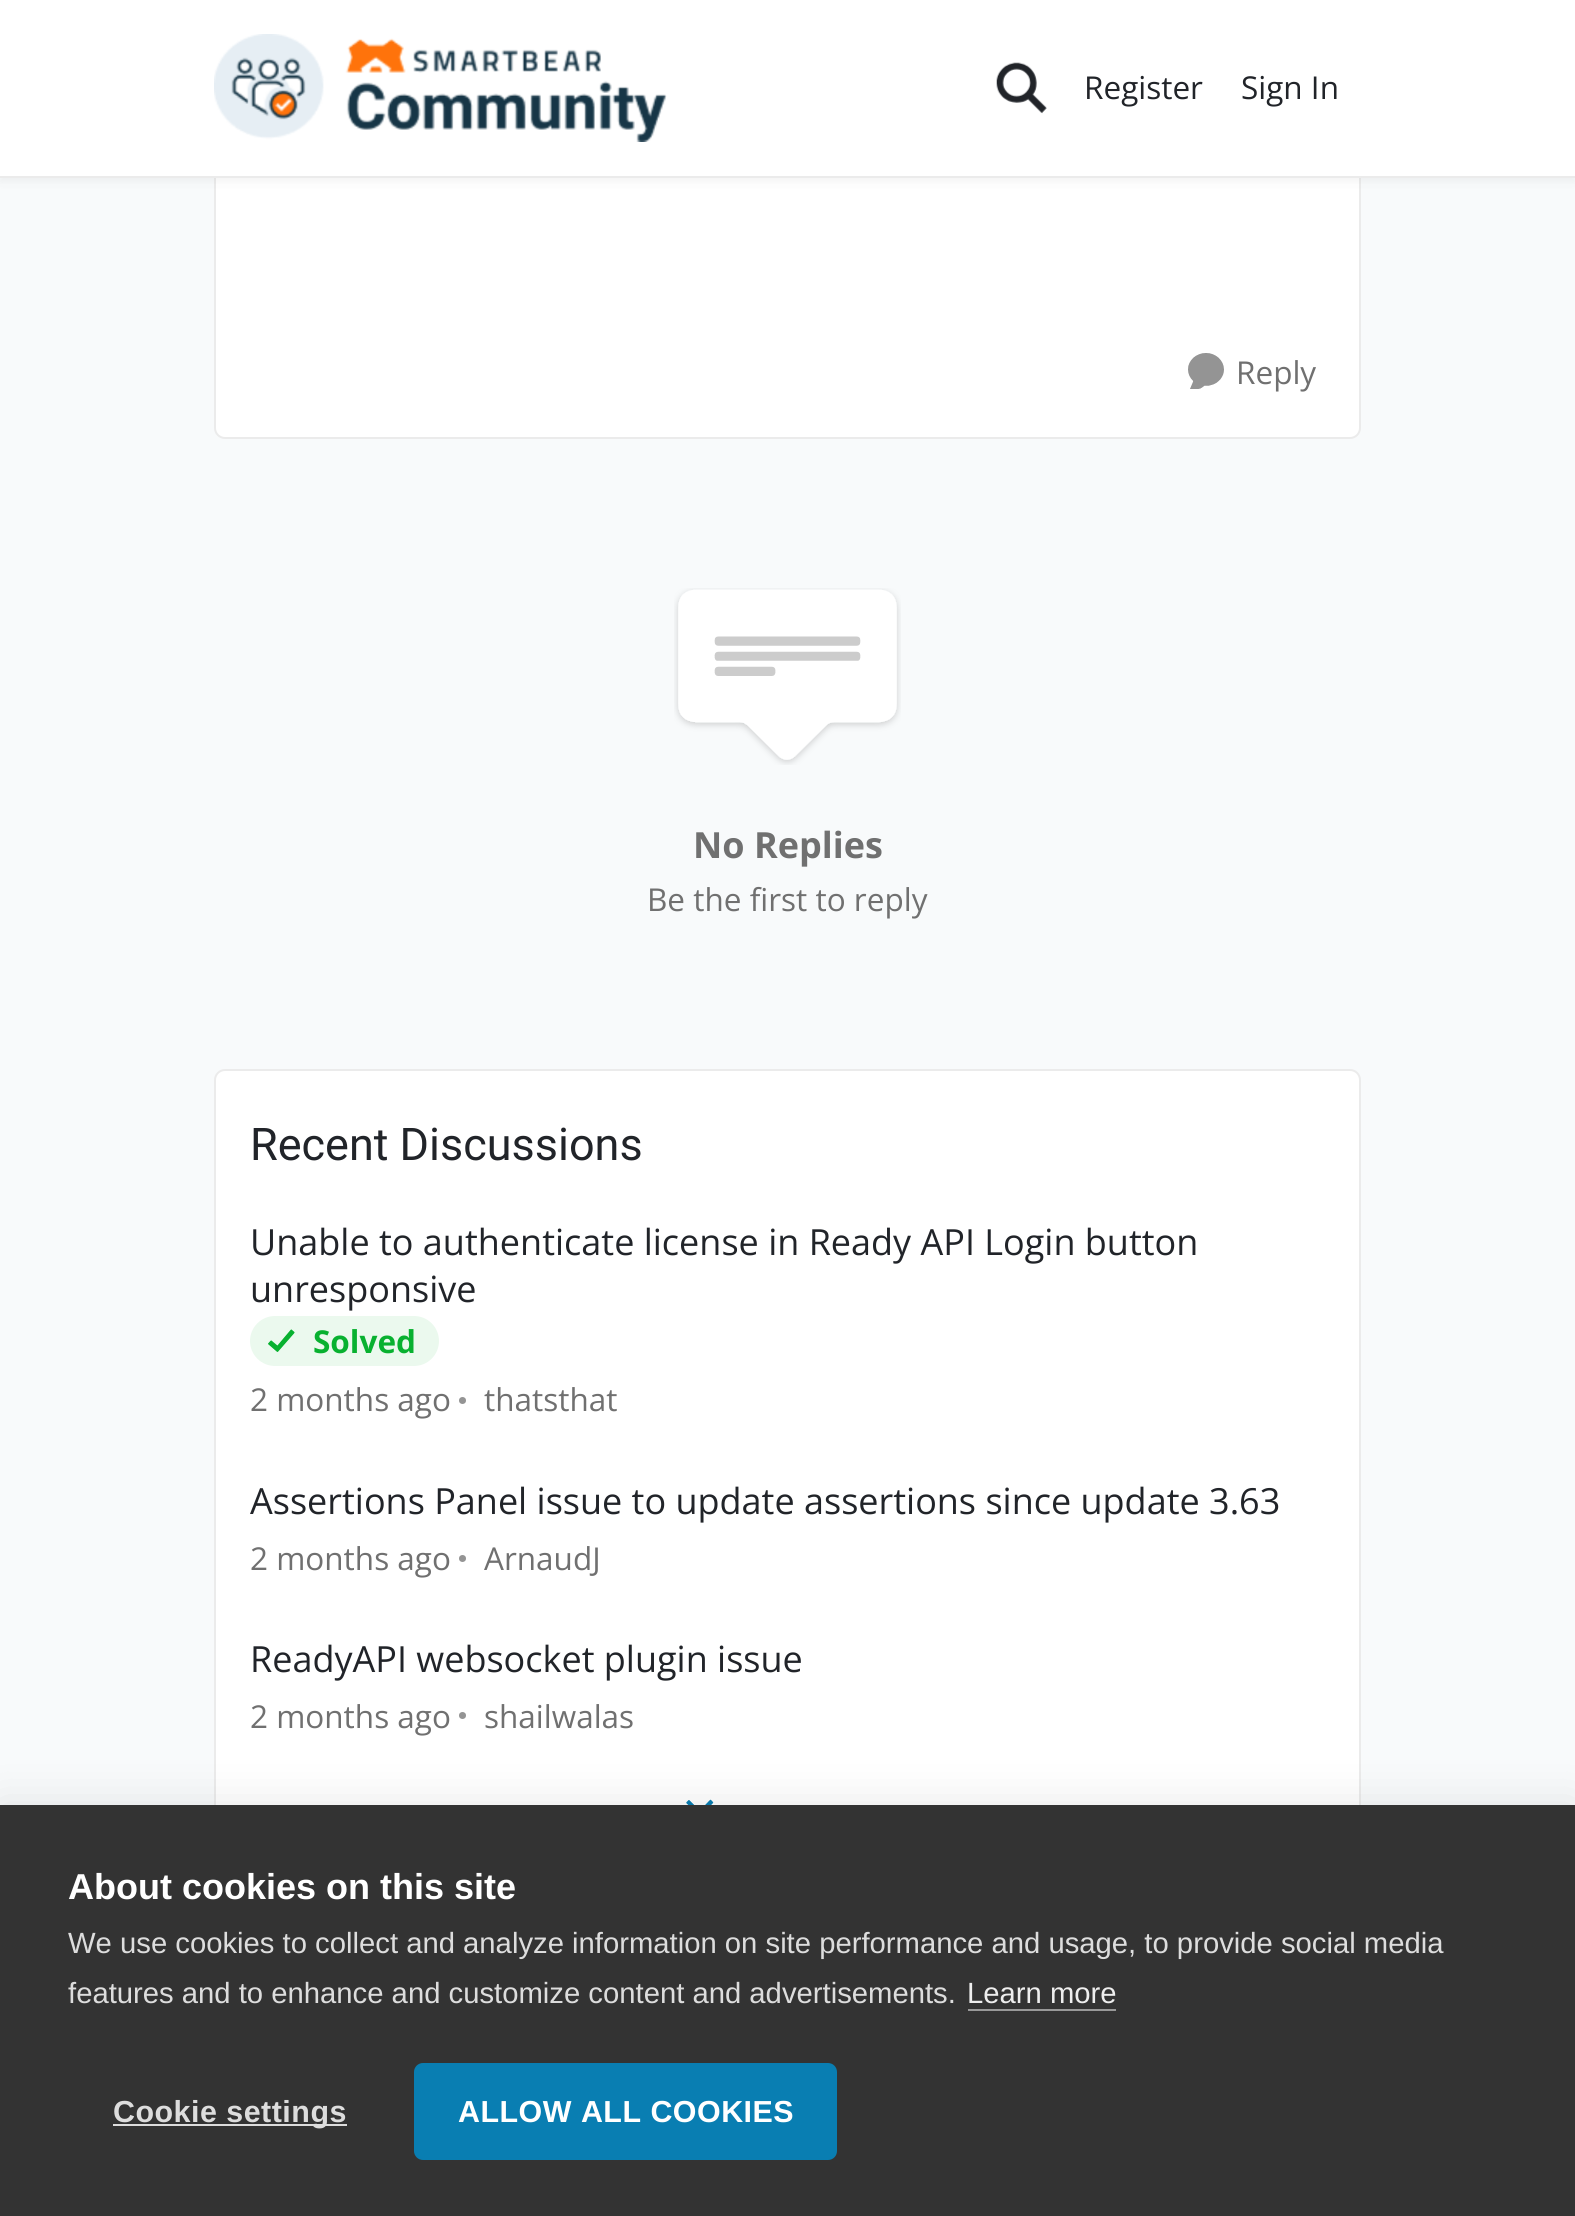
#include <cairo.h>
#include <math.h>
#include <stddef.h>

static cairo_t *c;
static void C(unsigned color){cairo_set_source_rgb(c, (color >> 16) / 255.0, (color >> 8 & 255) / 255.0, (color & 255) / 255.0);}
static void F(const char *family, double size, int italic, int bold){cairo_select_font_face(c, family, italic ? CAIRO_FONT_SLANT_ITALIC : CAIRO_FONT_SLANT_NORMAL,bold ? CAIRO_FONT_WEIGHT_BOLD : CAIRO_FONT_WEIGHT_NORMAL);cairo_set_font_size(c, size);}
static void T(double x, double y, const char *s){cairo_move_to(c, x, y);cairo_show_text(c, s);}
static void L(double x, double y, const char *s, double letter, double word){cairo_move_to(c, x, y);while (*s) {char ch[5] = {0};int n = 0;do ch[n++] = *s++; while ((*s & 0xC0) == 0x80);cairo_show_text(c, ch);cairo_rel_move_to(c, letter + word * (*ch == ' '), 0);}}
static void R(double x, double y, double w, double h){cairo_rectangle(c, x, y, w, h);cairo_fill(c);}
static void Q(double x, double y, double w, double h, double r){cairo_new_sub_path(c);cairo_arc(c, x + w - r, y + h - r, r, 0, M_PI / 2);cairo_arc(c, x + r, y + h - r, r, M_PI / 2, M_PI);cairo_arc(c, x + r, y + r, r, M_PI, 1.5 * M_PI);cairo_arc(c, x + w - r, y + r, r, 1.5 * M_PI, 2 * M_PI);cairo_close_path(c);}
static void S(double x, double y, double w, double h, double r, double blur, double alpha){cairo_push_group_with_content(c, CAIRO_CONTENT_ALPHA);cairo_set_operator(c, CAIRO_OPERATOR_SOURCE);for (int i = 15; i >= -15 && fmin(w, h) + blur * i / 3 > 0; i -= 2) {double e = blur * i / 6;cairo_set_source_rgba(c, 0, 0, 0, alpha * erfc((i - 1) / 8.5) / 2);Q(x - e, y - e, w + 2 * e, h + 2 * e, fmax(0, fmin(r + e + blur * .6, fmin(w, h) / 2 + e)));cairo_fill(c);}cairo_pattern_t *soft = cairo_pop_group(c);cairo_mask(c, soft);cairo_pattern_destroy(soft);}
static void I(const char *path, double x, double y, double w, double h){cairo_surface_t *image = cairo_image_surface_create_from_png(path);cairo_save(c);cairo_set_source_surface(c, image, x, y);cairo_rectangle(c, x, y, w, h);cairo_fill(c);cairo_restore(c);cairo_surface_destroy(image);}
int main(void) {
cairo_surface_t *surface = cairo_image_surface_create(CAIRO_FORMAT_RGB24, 1575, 2216);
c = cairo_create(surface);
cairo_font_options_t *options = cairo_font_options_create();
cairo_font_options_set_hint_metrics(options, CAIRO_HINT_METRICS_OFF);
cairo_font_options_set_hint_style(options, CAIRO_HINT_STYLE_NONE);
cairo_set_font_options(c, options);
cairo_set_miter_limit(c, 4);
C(0xf8fafb);
cairo_paint(c);
C(0xffffff);
Q(215,-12,1145,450,10);
cairo_fill_preserve(c);
C(0xebebeb);
cairo_stroke(c);
C(0x333333);
S(0,5,1575,177,0,4.5,.06);
C(0xffffff);
R(0,0,1575,176);
C(0xebebeb);
R(0,176,1575,2);
I("1.png",214,34,453,108);
I("2.png",996,62,51,52);
F("Open Sans",31.5,0,0);
C(0x212429);
T(1084,99,"Register");
T(1241,99,"Sign In");
I("3.png",1188,353,36,36);
C(0x707070);
T(1236,384,"Reply");
I("4.png",674,588,227,177);
F("Open Sans",36,0,1);
T(693,858,"No Replies");
F("Open Sans",31.5,0,0);
T(647,911,"Be the first to reply");
C(0xffffff);
Q(215,1070,1145,803,10);
cairo_fill_preserve(c);
C(0xebebeb);
cairo_stroke(c);
F("Roboto",45,0,0);
C(0x212429);
T(250,1160,"Recent Discussions");
F("Open Sans",36,0,0);
T(250,1255,"Unable to authenticate license in Ready API Login button");
T(250,1302,"unresponsive");
C(0xebf9ee);
Q(250,1316,189,50,25);
cairo_fill(c);
I("5.png",268,1329,27,23);
F("Open Sans",31.5,0,1);
C(0x08b130);
T(313,1353,"Solved");
F("Open Sans",31.5,0,0);
C(0x707070);
T(250,1411,"2 months ago");
C(0x949494);
cairo_new_path(c);
cairo_arc(c,462.5,1400.5,3.5,0,2 * M_PI);
cairo_fill(c);
C(0x707070);
T(484,1411,"thatsthat");
F("Open Sans",36,0,0);
C(0x212429);
T(250,1514,"Assertions Panel issue to update assertions since update 3.63");
F("Open Sans",31.5,0,0);
C(0x707070);
T(250,1570,"2 months ago");
C(0x949494);
cairo_new_path(c);
cairo_arc(c,462.5,1558.5,3.5,0,2 * M_PI);
cairo_fill(c);
C(0x707070);
T(484,1570,"ArnaudJ");
F("Open Sans",36,0,0);
C(0x212429);
T(250,1672,"ReadyAPI websocket plugin issue");
F("Open Sans",31.5,0,0);
C(0x707070);
T(250,1728,"2 months ago");
C(0x949494);
cairo_new_path(c);
cairo_arc(c,462.5,1715.5,3.5,0,2 * M_PI);
cairo_fill(c);
C(0x707070);
T(484,1728,"shailwalas");
I("6.png",686,1799,28,6);
C(0x000000);
S(0,1805,1575,411,0,22.5,.1);
C(0x333333);
R(0,1805,1575,411);
F("Liberation Sans",36,0,1);
C(0xffffff);
T(68,1899,"About cookies on this site");
F("Liberation Sans",29.25,0,0);
C(0xdddddd);
T(68,1953,"We use cookies to collect and analyze information on site performance and usage, to provide social media");
T(68,2003,"features and to enhance and customize content and advertisements.");
C(0xeeeeee);
T(967,2003,"Learn more");
C(0x999999);
R(968,2009,148,2);
C(0xdddddd);
R(113,2124,234,2);
F("Liberation Sans",30.4,0,1);
L(113,2122,"Cookie settings",.5,0);
C(0x097eb2);
Q(414,2063,423,97,9);
cairo_fill(c);
C(0xffffff);
L(458,2122,"ALLOW ALL COOKIES",.5,0);
cairo_surface_write_to_png(surface, "o.png");
cairo_font_options_destroy(options);
cairo_destroy(c);
cairo_surface_destroy(surface);
return 0;
}
